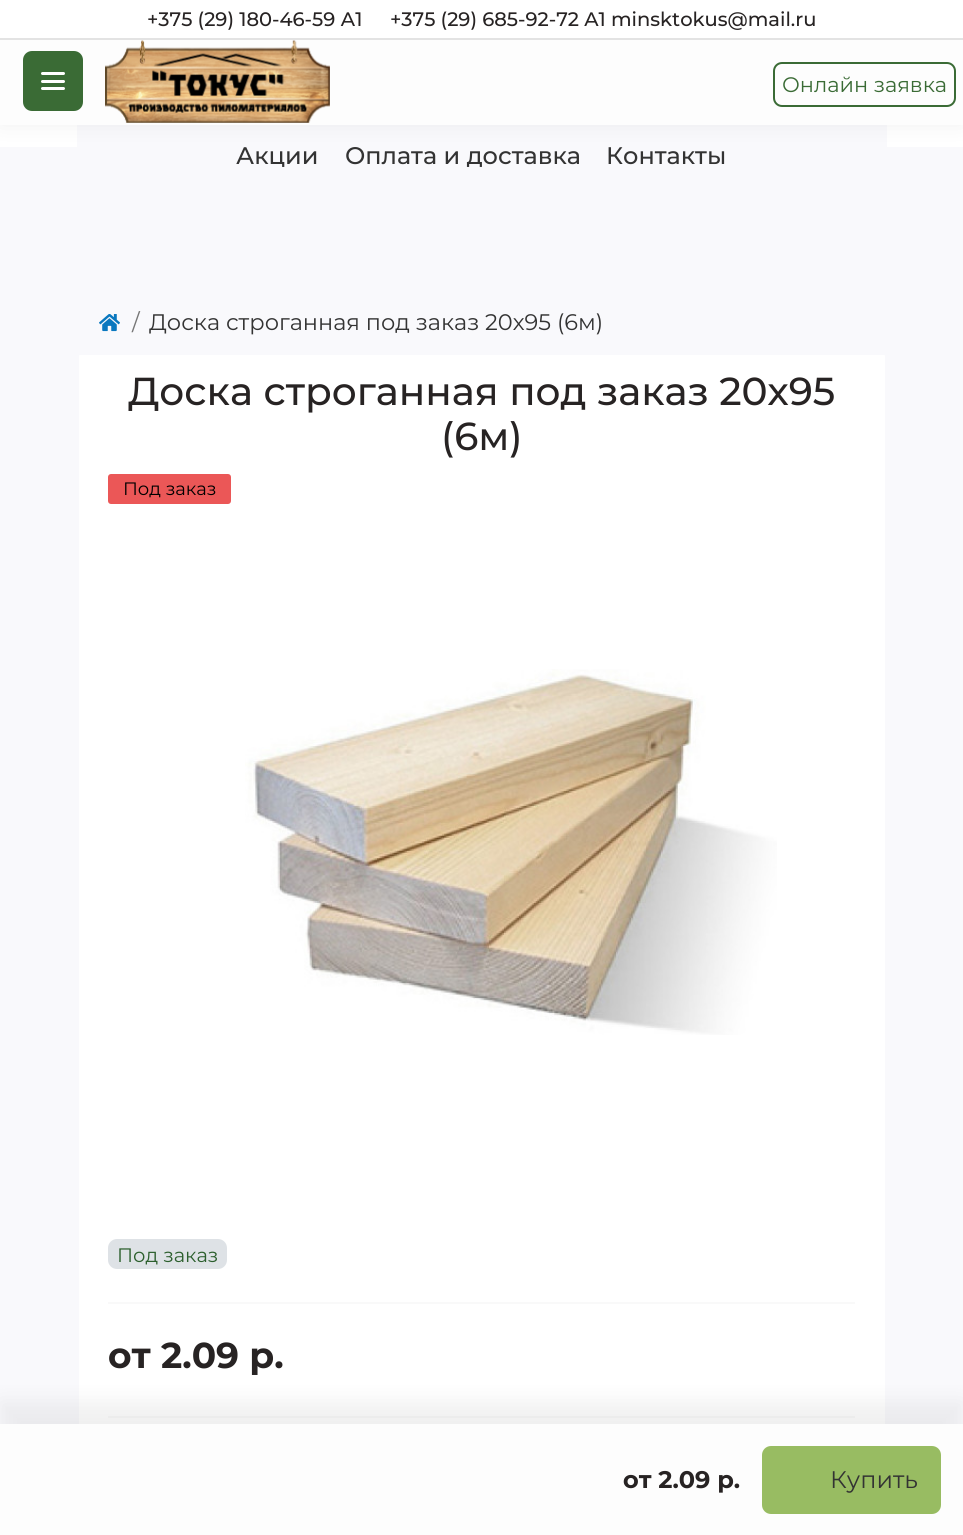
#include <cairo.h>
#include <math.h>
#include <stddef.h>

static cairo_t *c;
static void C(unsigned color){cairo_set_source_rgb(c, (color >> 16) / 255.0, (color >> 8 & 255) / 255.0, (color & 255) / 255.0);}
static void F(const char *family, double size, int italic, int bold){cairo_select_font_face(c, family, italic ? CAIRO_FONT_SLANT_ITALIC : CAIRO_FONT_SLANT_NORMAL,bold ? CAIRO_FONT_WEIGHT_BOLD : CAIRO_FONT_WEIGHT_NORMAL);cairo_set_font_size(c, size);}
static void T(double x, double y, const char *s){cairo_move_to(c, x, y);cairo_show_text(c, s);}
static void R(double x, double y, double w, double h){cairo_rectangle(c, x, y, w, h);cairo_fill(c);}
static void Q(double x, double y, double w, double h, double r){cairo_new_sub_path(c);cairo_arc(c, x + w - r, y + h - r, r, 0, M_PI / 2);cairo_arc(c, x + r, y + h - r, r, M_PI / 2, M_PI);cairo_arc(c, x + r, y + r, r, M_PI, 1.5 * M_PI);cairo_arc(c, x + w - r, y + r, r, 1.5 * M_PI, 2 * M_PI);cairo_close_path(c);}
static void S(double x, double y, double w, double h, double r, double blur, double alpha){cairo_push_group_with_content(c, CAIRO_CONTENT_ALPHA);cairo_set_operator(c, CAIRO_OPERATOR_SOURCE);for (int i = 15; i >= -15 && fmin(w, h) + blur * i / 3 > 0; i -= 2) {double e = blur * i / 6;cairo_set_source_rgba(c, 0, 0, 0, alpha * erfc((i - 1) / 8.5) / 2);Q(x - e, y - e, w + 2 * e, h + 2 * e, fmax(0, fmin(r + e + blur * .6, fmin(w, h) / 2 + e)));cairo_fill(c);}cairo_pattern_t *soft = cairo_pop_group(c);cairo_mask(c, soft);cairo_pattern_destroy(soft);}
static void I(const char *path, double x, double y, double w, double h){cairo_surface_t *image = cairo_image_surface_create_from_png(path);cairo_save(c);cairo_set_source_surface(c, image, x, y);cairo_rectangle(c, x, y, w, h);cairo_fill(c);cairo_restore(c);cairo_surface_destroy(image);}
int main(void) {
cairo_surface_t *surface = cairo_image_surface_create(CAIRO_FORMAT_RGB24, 963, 1535);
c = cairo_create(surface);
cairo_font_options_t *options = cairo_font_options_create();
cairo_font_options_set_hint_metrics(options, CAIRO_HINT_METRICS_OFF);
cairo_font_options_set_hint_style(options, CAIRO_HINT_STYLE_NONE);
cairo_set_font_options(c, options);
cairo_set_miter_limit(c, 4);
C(0xf9f9fc);
cairo_paint(c);
C(0xffffff);
R(0,125,963,22);
C(0xf9f9fc);
R(77,125,810,22);
C(0x000000);
S(0,38,963,87,0,11,.06);
C(0xfdfdfd);
R(0,40,963,85);
C(0x3a6b35);
Q(23,51,60,60,9);
cairo_fill(c);
C(0xffffff);
Q(41,72,24,3,1.5);
cairo_fill(c);
Q(41,80,24,3,1.5);
cairo_fill(c);
Q(41,87,24,3,1.5);
cairo_fill(c);
R(0,0,963,38);
C(0xe3e3e3);
R(0,38,963,2);
F("Montserrat Medium",19.5,0,0);
C(0x272323);
T(147,26,"+375 (29) 180-46-59 А1");
T(390,26,"+375 (29) 685-92-72 A1 minsktokus@mail.ru");
I("1.png",105,40,225,83);
Q(774,63,181,43,8);
C(0x3a6b35);
cairo_stroke(c);
F("Montserrat",21,0,0);
T(782,92,"Онлайн заявка");
F("Montserrat Medium",24,0,0);
C(0x333333);
T(236,164,"Акции");
T(345,164,"Оплата и доставка");
T(606,164,"Контакты");
I("2.png",99,314,21,18);
F("Montserrat",22.5,0,0);
C(0x777777);
T(132,330,"/");
C(0x333333);
T(149,330,"Доска строганная под заказ 20х95 (6м)");
C(0xffffff);
Q(78,354,808,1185,2);
cairo_fill_preserve(c);
C(0xf9f9fc);
cairo_stroke(c);
F("Montserrat Medium",39,0,0);
C(0x272323);
T(128,405,"Доска строганная под заказ 20х95");
T(441,450,"(6м)");
C(0xeb5757);
Q(108,474,123,30,3);
cairo_fill(c);
F("Montserrat",18,0,0);
C(0x000000);
T(123,495,"Под заказ");
I("3.png",245,669,532,366);
C(0xf9f9f9);
R(108,1302,747,2);
C(0xdee2e6);
Q(108,1239,119,30,9);
cairo_fill(c);
F("Montserrat",19.5,0,0);
C(0x2c5f2d);
T(117,1262,"Под заказ");
C(0xf9f9f9);
R(108,1416,747,2);
F("Montserrat",36,0,1);
C(0x272323);
T(108,1368,"от 2.09 р.");
C(0x000000);
S(0,1401,963,113,0,11,.06);
C(0xfdfdfd);
R(0,1424,963,111);
F("Montserrat",24,0,1);
C(0x272323);
T(623,1488,"от 2.09 р.");
C(0x98bc62);
Q(762,1446,179,68,9);
cairo_fill(c);
F("Montserrat",24,0,0);
C(0x333333);
T(830,1488,"Купить");
cairo_surface_write_to_png(surface, "o.png");
cairo_font_options_destroy(options);
cairo_destroy(c);
cairo_surface_destroy(surface);
return 0;
}
